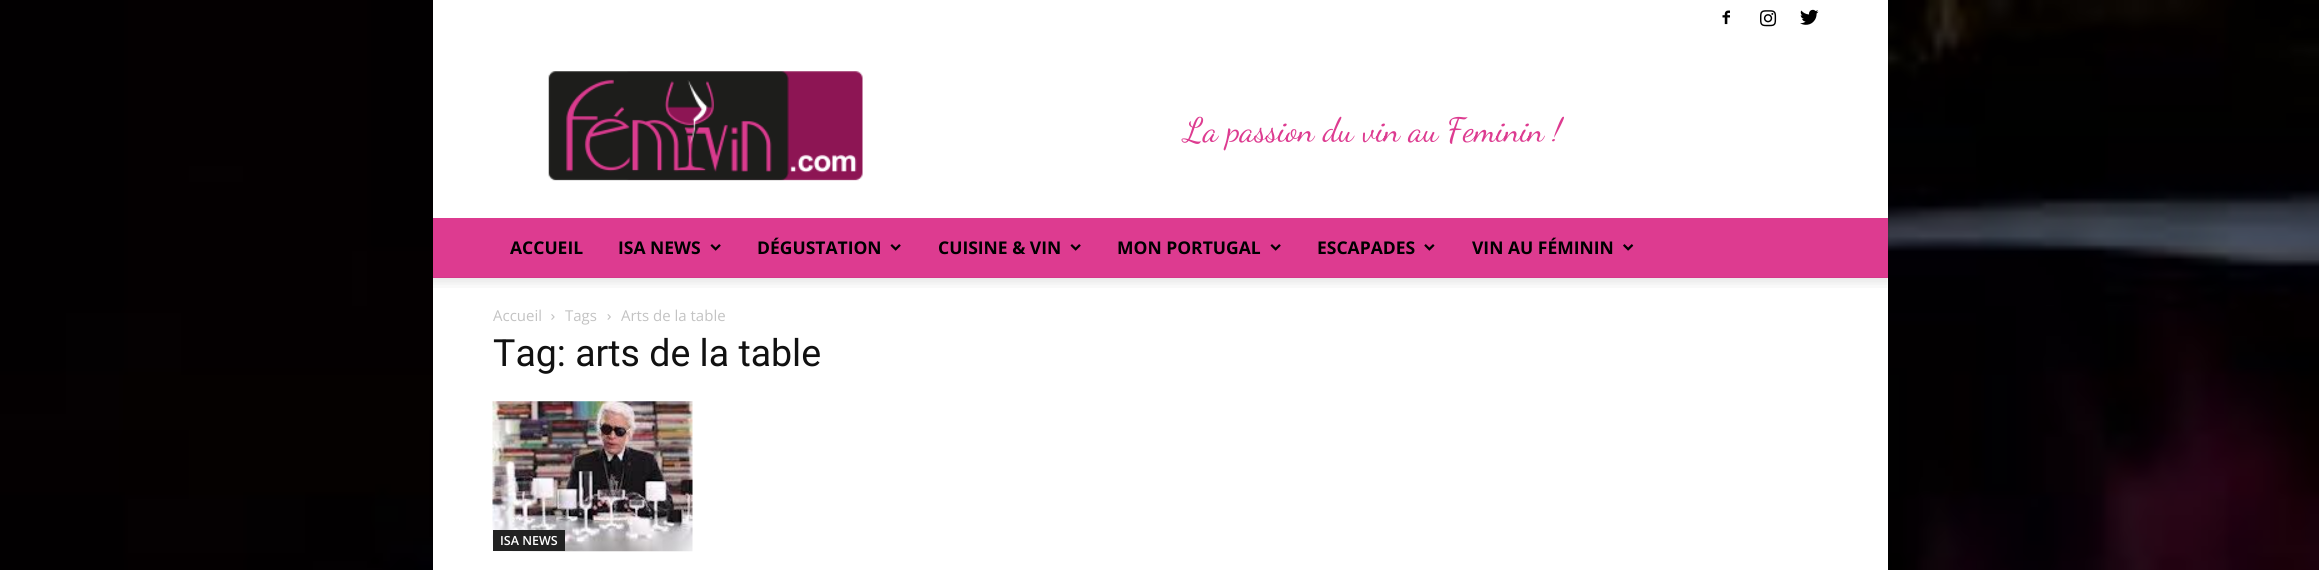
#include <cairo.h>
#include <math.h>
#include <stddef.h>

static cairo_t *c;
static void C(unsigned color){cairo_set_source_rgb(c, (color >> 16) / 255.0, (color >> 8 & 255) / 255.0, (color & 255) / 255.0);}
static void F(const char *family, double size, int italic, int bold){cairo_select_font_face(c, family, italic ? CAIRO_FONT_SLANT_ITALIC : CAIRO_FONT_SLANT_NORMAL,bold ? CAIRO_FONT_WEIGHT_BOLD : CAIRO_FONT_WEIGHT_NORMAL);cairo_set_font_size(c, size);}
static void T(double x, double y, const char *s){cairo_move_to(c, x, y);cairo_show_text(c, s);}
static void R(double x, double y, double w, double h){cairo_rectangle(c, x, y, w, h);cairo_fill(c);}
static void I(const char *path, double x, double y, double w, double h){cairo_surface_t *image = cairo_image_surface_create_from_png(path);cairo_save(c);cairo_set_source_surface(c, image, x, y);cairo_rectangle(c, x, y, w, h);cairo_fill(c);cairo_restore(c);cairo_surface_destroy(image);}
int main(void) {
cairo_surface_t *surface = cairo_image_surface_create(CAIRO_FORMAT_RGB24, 2319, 570);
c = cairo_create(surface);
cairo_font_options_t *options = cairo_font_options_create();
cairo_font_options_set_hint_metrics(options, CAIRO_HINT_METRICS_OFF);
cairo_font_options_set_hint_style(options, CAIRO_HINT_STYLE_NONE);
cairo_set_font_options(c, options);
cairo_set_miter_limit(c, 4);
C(0xffffff);
cairo_paint(c);
I("1.png",0,0,2319,570);
C(0xffffff);
R(433,0,1455,218);
I("2.png",1722,10,8,15);
I("3.png",1760,10,17,17);
I("4.png",1800,9,19,16);
I("5.png",548,71,315,110);
F("Dancing Script",33.75,0,0);
C(0xdd3b90);
T(1184,141,"La passion du vin au Feminin !");
R(433,218,1455,60);
F("Open Sans",17.5,0,1);
C(0x000000);
T(510,254,"ACCUEIL");
T(618,254,"ISA NEWS");
I("6.png",710,244,11,7);
T(757,254,"DÉGUSTATION");
I("6.png",890,244,11,7);
T(938,254,"CUISINE & VIN");
I("6.png",1070,244,11,7);
T(1117,254,"MON PORTUGAL");
I("6.png",1270,244,11,7);
T(1317,254,"ESCAPADES");
I("7.png",1424,244,11,7);
T(1472,254,"VIN AU FÉMININ");
I("8.png",1623,244,11,7);
C(0xffffff);
R(433,278,1455,292);
I("9.png",433,277,1455,11);
F("Open Sans",15,0,0);
C(0xc3c3c3);
T(493,321,"Accueil");
I("10.png",551,314,4,6);
T(565,321,"Tags");
I("11.png",607,314,4,6);
T(621,321,"Arts de la table");
F("Roboto",37.5,0,0);
C(0x111111);
T(493,366,"Tag: arts de la table");
I("12.png",492,401,201,151);
C(0x222222);
R(493,530,72,21);
F("Open Sans SemiBold",12.5,0,0);
C(0xffffff);
T(500,545,"ISA NEWS");
cairo_surface_write_to_png(surface, "o.png");
cairo_font_options_destroy(options);
cairo_destroy(c);
cairo_surface_destroy(surface);
return 0;
}
